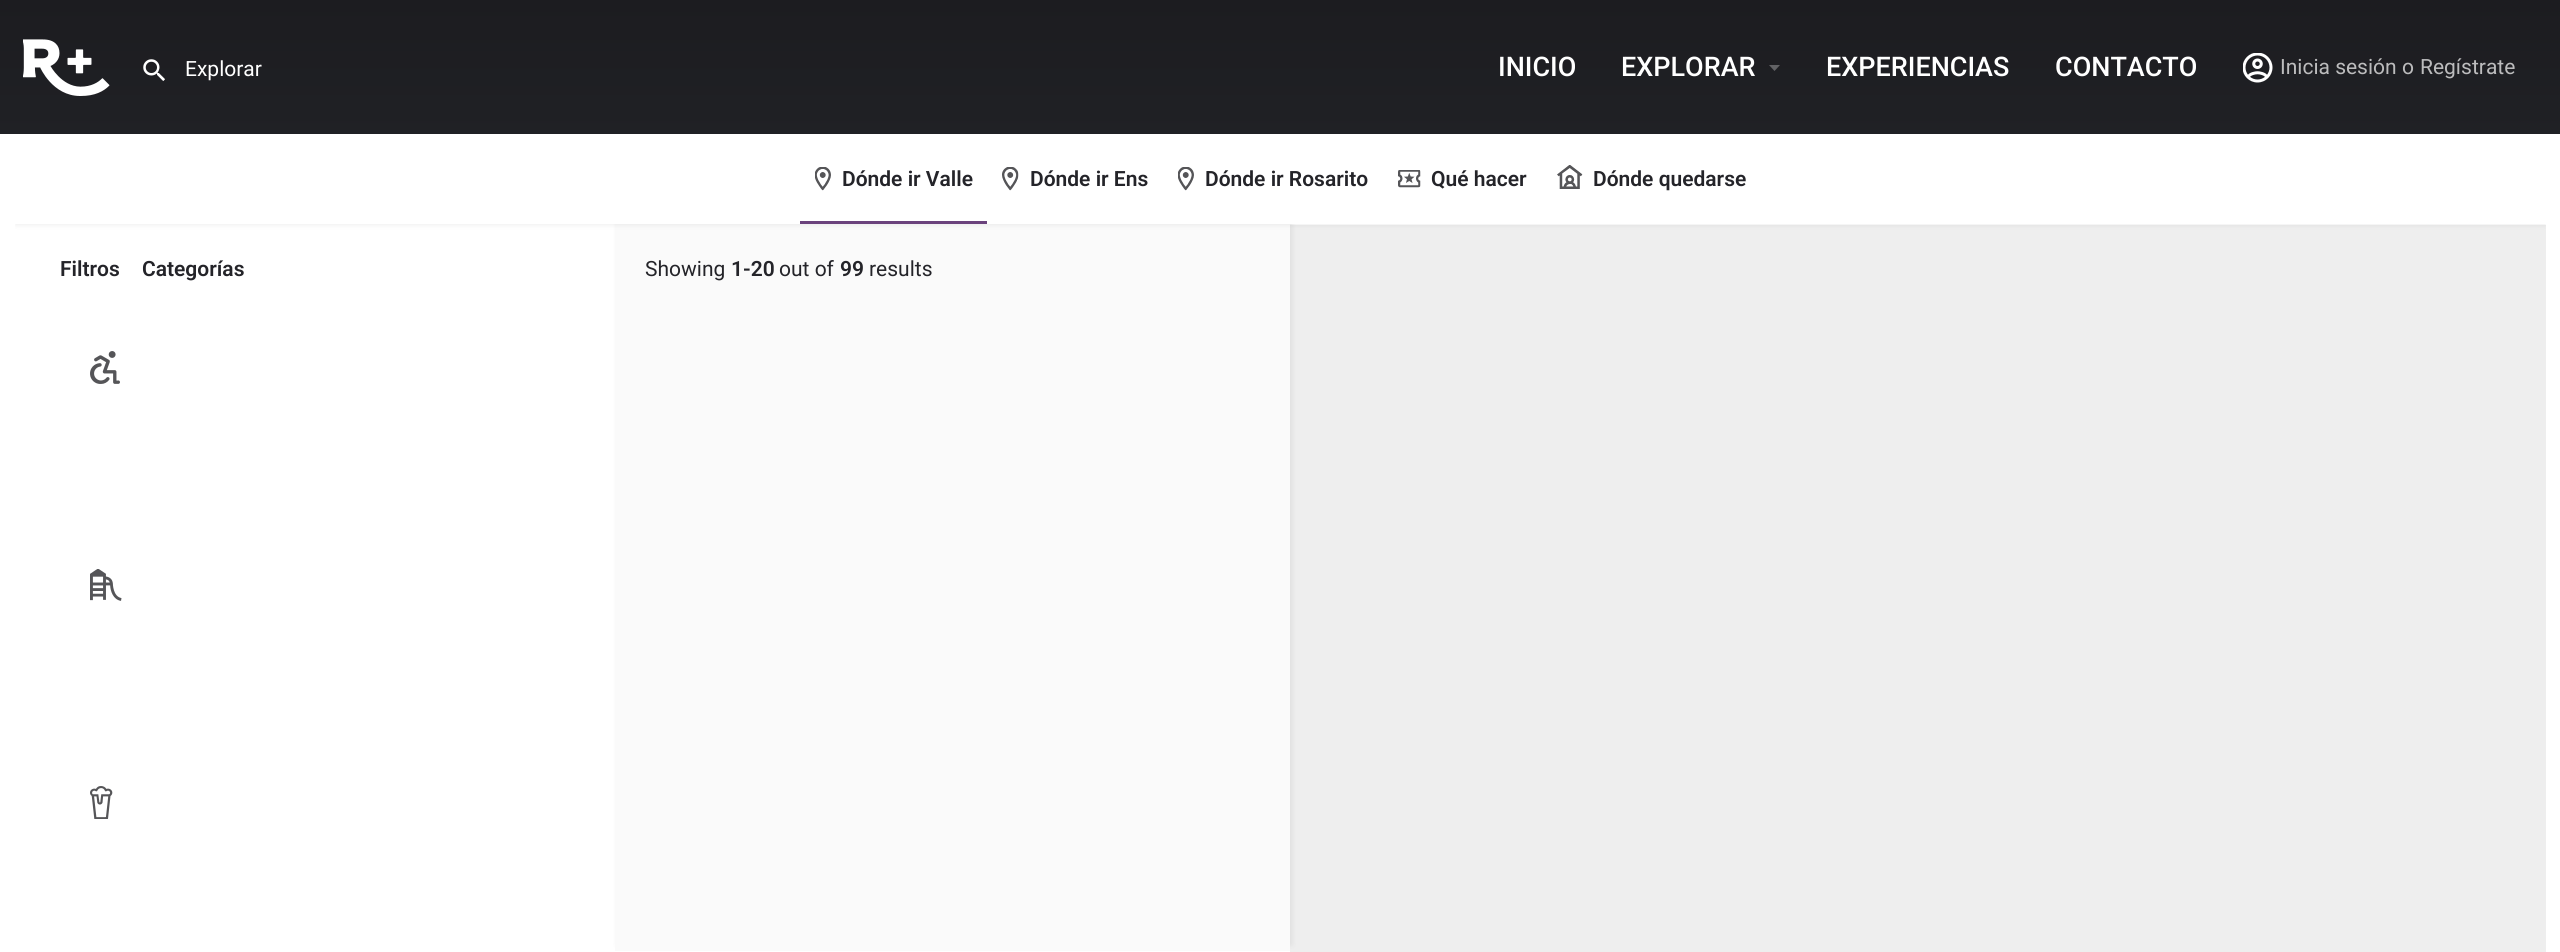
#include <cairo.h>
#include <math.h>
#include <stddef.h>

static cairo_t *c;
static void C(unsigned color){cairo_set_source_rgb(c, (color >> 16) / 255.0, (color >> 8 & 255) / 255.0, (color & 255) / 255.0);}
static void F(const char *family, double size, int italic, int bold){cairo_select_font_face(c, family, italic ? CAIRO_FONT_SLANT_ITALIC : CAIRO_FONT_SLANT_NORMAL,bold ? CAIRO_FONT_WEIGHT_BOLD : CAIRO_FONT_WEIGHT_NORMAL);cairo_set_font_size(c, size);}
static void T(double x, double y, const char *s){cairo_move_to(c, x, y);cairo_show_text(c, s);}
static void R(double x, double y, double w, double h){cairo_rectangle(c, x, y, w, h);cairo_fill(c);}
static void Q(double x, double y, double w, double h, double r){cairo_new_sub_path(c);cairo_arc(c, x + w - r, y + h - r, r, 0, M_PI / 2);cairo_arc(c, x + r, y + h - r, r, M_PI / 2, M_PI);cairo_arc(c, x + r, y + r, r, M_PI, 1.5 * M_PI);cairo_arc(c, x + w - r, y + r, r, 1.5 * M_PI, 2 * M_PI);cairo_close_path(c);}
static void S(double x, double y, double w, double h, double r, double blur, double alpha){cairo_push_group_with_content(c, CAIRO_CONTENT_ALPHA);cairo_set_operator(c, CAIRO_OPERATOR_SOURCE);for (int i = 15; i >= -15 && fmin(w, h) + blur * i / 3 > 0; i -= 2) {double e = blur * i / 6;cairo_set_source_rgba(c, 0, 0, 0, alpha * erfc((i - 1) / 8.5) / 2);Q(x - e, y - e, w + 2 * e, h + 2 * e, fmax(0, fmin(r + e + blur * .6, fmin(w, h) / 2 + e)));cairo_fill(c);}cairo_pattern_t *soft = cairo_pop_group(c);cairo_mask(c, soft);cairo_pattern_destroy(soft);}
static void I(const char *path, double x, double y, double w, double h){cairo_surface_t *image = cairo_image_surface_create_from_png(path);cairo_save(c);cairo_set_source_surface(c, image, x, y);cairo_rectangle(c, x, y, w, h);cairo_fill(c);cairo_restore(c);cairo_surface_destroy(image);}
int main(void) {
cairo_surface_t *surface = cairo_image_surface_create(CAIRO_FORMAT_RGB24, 2560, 952);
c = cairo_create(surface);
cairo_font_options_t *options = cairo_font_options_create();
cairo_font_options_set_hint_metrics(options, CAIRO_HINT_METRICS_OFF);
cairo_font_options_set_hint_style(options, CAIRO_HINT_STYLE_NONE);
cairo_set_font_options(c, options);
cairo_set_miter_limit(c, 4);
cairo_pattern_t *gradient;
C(0xffffff);
cairo_paint(c);
C(0xeeeeee);
R(1290,225,1256,727);
C(0x000000);
S(617,218,675,727,0,3,.07);
C(0xfafafa);
R(615,224,675,727);
cairo_save(c);
cairo_rectangle(c,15,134,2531,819);
cairo_clip(c);
C(0x000000);
S(15,135,2531,90,0,3,.07);
cairo_restore(c);
gradient = cairo_pattern_create_linear(1280,0,1280,134);
cairo_pattern_add_color_stop_rgba(gradient,0,0.11,0.11,0.125,1);
cairo_pattern_add_color_stop_rgba(gradient,1,0.125,0.129,0.145,1);
cairo_set_source(c,gradient);
cairo_pattern_destroy(gradient);
R(0,0,2560,134);
I("1.png",23,39,87,57);
I("2.png",143,59,22,22);
F("Roboto",21,0,0);
C(0xffffff);
T(185,76,"Explorar");
F("Roboto Medium",27,0,0);
T(1498,76,"INICIO");
T(1621,76,"EXPLORAR");
C(0x626265);
cairo_new_path(c);
cairo_move_to(c,1769,65);
cairo_line_to(c,1780,65);
cairo_line_to(c,1774.5,71);
cairo_close_path(c);
cairo_fill(c);
C(0xffffff);
T(1826,76,"EXPERIENCIAS");
T(2055,76,"CONTACTO");
I("3.png",2243,53,30,30);
F("Roboto",21,0,0);
C(0xbcbcbd);
T(2280,74,"Inicia sesión");
T(2402,74,"o");
T(2420,74,"Regístrate");
C(0xffffff);
R(15,134,2531,90);
I("4.png",815,167,16,24);
F("Roboto SemiBold",21,0,0);
C(0x242429);
T(842,186,"Dónde ir Valle");
C(0x6a427c);
R(800,221,187,3);
I("5.png",1002,167,17,24);
C(0x242429);
T(1030,186,"Dónde ir Ens");
I("4.png",1178,167,16,24);
T(1205,186,"Dónde ir Rosarito");
I("6.png",1398,170,23,18);
T(1431,186,"Qué hacer");
I("7.png",1557,165,26,24);
T(1593,186,"Dónde quedarse");
T(60,276,"Filtros");
T(142,276,"Categorías");
I("8.png",90,351,30,33);
I("9.png",90,569,32,32);
I("10.png",90,786,23,33);
F("Roboto",21,0,0);
T(645,276,"Showing");
F("Roboto SemiBold",21,0,0);
T(731,276,"1-20");
F("Roboto",21,0,0);
T(779,276,"out of");
F("Roboto SemiBold",21,0,0);
T(840,276,"99");
F("Roboto",21,0,0);
T(869,276,"results");
cairo_surface_write_to_png(surface, "o.png");
cairo_font_options_destroy(options);
cairo_destroy(c);
cairo_surface_destroy(surface);
return 0;
}
